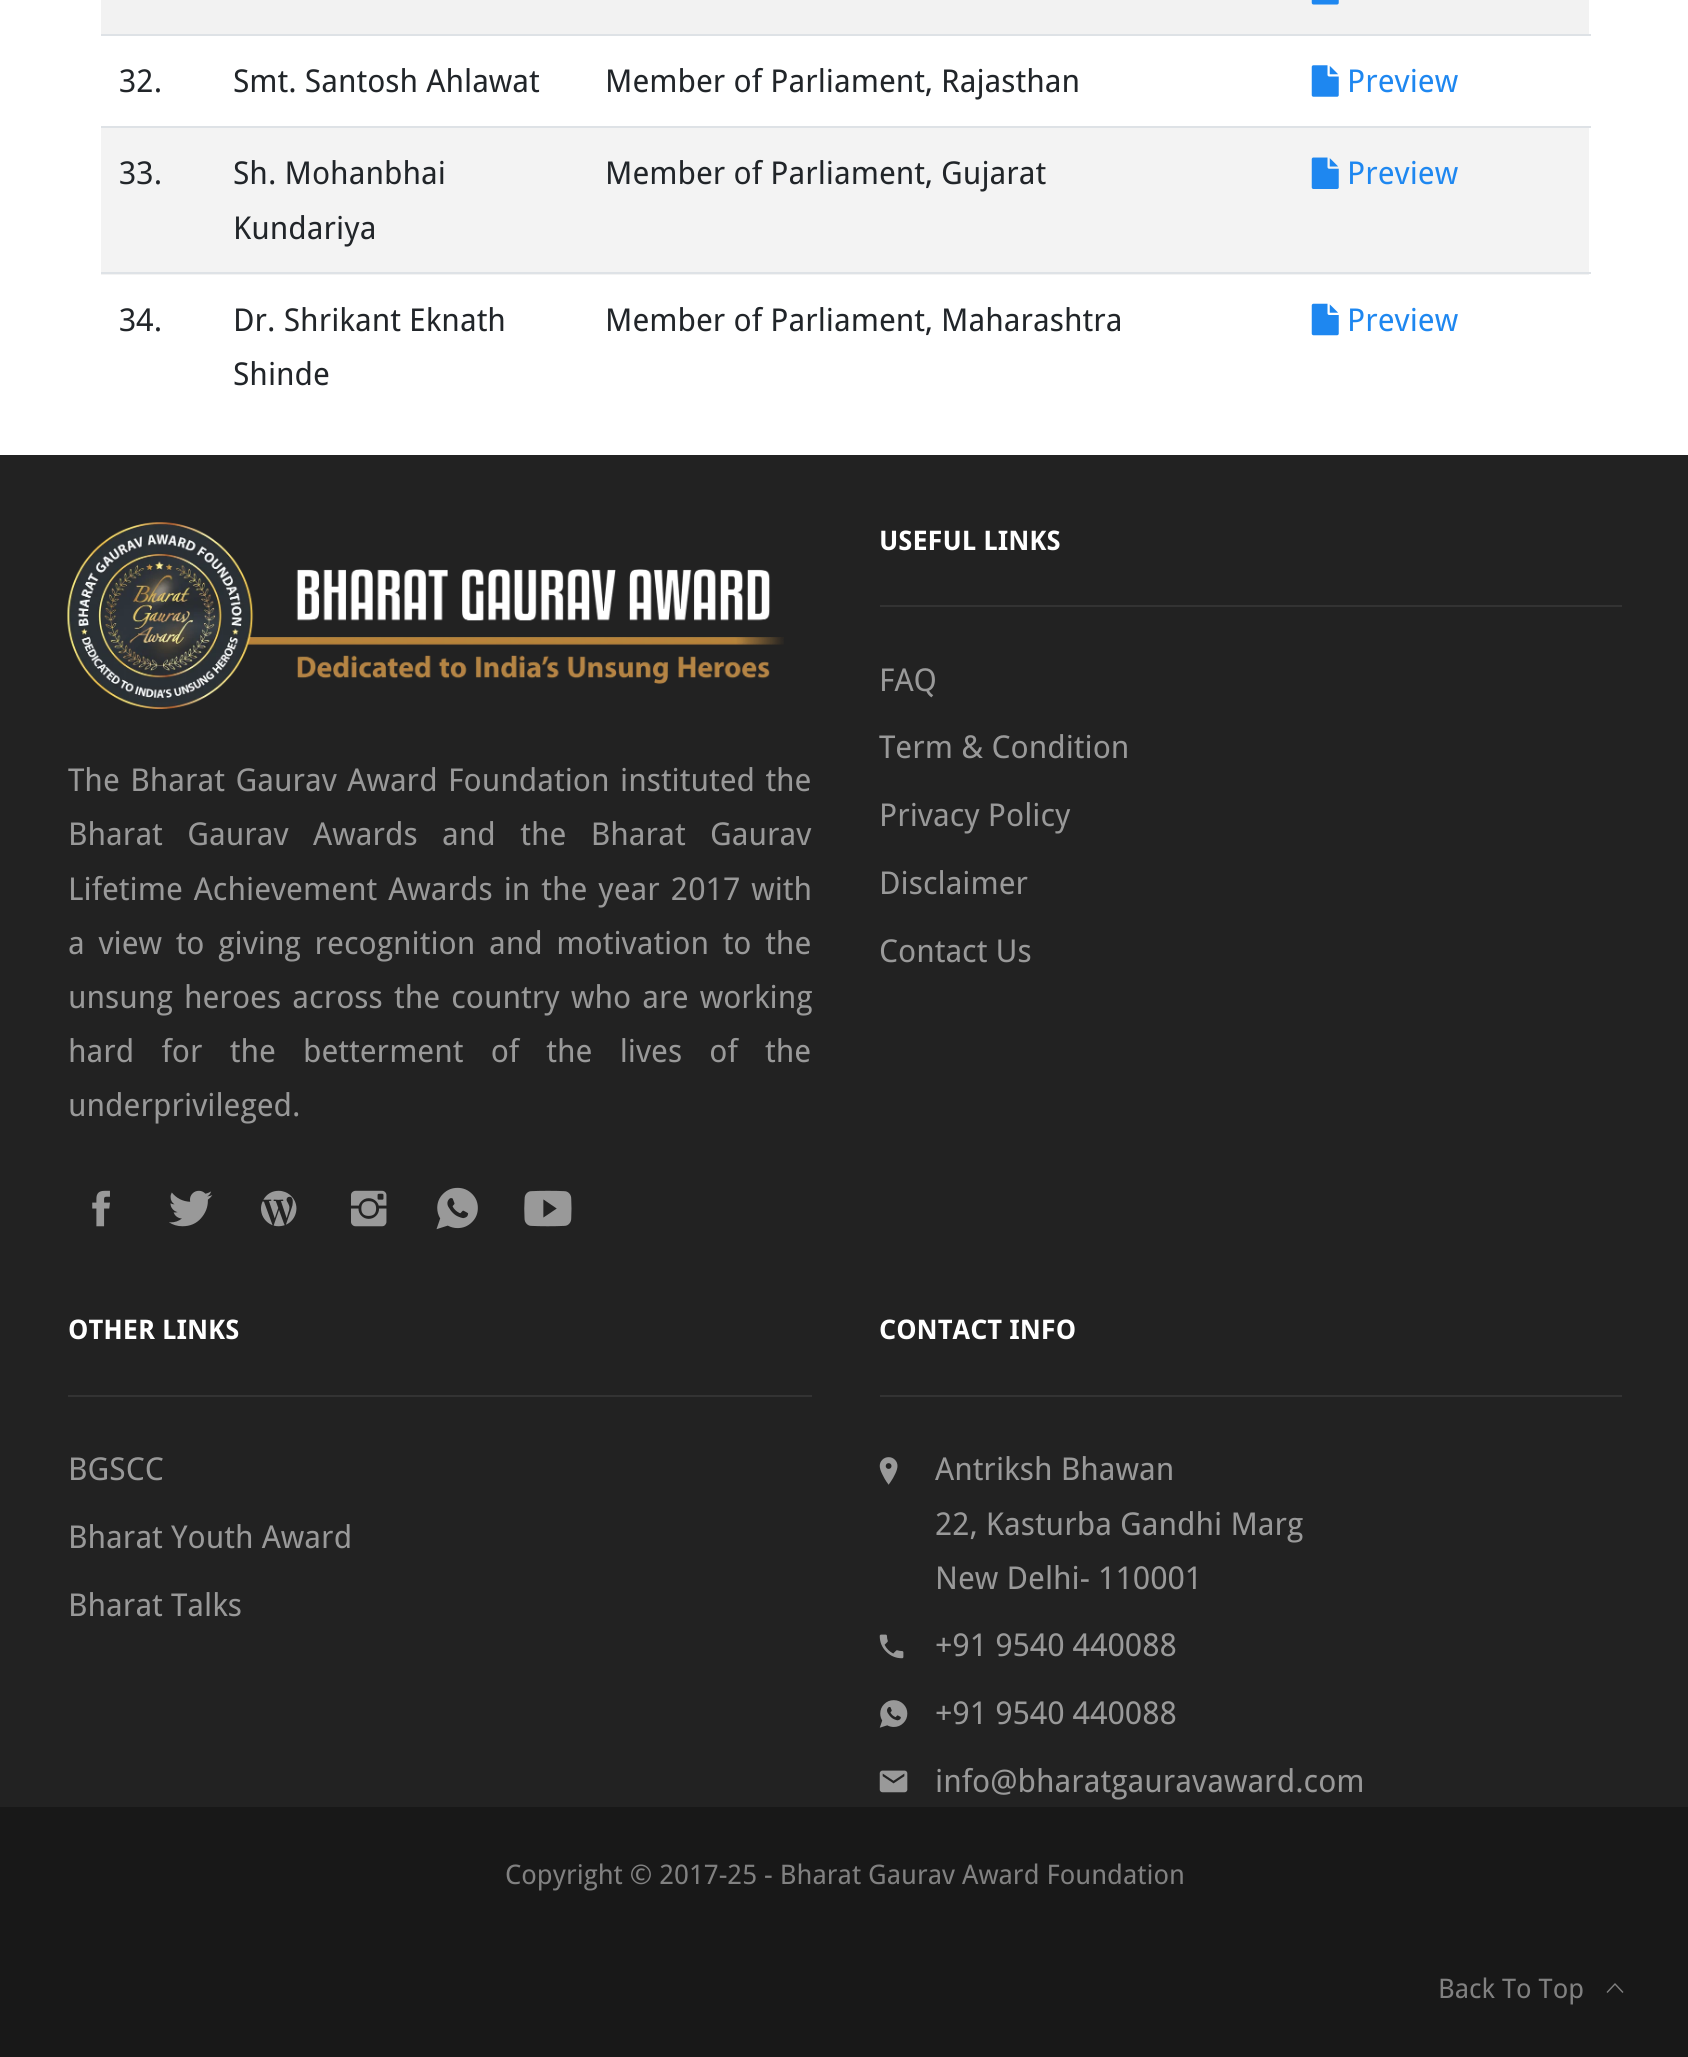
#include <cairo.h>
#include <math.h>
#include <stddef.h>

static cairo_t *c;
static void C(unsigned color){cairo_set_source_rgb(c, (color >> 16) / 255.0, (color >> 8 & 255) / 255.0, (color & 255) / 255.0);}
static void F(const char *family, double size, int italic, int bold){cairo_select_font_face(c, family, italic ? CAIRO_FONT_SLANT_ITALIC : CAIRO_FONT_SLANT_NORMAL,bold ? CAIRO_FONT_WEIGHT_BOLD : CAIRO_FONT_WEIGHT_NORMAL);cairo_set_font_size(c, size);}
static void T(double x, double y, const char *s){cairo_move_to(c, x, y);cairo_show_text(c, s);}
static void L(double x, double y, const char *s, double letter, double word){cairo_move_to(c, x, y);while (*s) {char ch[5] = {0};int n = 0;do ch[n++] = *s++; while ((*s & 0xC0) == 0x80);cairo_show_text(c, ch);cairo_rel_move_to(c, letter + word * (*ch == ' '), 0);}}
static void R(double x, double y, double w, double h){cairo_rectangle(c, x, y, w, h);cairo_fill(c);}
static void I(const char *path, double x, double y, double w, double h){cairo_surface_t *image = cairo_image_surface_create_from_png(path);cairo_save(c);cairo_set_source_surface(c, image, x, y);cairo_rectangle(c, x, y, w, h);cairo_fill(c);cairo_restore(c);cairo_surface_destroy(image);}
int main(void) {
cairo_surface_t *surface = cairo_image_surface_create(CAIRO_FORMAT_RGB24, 1688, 2057);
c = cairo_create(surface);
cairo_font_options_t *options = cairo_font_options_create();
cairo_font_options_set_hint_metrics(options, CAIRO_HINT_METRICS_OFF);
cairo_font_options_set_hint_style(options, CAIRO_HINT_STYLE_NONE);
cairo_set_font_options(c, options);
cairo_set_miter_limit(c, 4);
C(0xffffff);
cairo_paint(c);
C(0xf2f2f2);
R(101,0,1488,34);
I("1.png",1311,0,28,5);
F("Droid Sans",31.5,0,0);
C(0x212529);
T(119,92,"32.");
T(233,92,"Smt. Santosh Ahlawat");
T(605,92,"Member of Parliament, Rajasthan");
C(0xdee2e6);
R(101,34,1490,2);
I("2.png",1311,65,28,32);
C(0x1e87f0);
T(1347,92,"Preview");
C(0xf3f3f3);
R(101,128,1488,147);
C(0x212529);
T(119,184,"33.");
T(233,184,"Sh. Mohanbhai");
T(233,239,"Kundariya");
T(605,184,"Member of Parliament, Gujarat");
C(0xdee2e6);
R(101,126,1490,2);
I("3.png",1311,157,28,32);
C(0x1e87f0);
T(1347,184,"Preview");
C(0x212529);
T(119,331,"34.");
T(233,331,"Dr. Shrikant Eknath");
T(233,385,"Shinde");
T(605,331,"Member of Parliament, Maharashtra");
C(0xdee2e6);
R(101,272,1490,2);
I("4.png",1311,303,28,33);
C(0x1e87f0);
T(1347,331,"Preview");
C(0x222222);
R(0,455,1688,1352);
I("5.png",67,522,717,187);
C(0x999999);
L(68,791,"The Bharat Gaurav Award Foundation instituted the",0,2.25);
L(68,845,"Bharat Gaurav Awards and the Bharat Gaurav",0,16.25);
L(68,900,"Lifetime Achievement Awards in the year 2017 with",0,2.75);
L(68,954,"a view to giving recognition and motivation to the",0,5.5);
L(68,1008,"unsung heroes across the country who are working",0,3);
L(68,1062,"hard for the betterment of the lives of the",0,19);
T(68,1116,"underprivileged.");
I("6.png",92,1190,18,37);
I("7.png",169,1190,44,37);
I("8.png",261,1190,36,37);
I("9.png",351,1190,36,37);
I("10.png",436,1187,42,43);
I("11.png",524,1190,48,37);
F("Droid Sans",27,0,1);
C(0xffffff);
T(879,550,"USEFUL LINKS");
C(0x333333);
R(880,605,742,2);
F("Droid Sans",31.5,0,0);
C(0x999999);
T(879,691,"FAQ");
T(879,758,"Term & Condition");
T(879,826,"Privacy Policy");
T(879,894,"Disclaimer");
T(879,962,"Contact Us");
F("Droid Sans",27,0,1);
C(0xffffff);
T(68,1339,"OTHER LINKS");
C(0x333333);
R(68,1395,744,2);
F("Droid Sans",31.5,0,0);
C(0x999999);
T(68,1480,"BGSCC");
T(68,1548,"Bharat Youth Award");
T(68,1616,"Bharat Talks");
F("Droid Sans",27,0,1);
C(0xffffff);
T(879,1339,"CONTACT INFO");
C(0x333333);
R(880,1395,742,2);
I("12.png",879,1457,19,28);
F("Droid Sans",31.5,0,0);
C(0x999999);
T(935,1480,"Antriksh Bhawan");
T(935,1535,"22, Kasturba Gandhi Marg");
T(935,1589,"New Delhi- 110001");
I("13.png",879,1634,25,25);
T(935,1656,"+91 9540 440088");
I("14.png",879,1700,29,28);
T(935,1724,"+91 9540 440088");
I("15.png",879,1770,29,23);
T(935,1792,"info@bharatgauravaward.com");
C(0x181818);
R(0,1807,1688,250);
F("Droid Sans",27,0,0);
C(0x818181);
T(505,1884,"Copyright © 2017-25 - Bharat Gaurav Award Foundation");
T(1438,1998,"Back To Top");
cairo_new_path(c);
cairo_move_to(c,1622.5,1993);
cairo_line_to(c,1615,1985);
cairo_line_to(c,1607.5,1993);
cairo_line_to(c,1606.5,1992);
cairo_line_to(c,1615,1983);
cairo_line_to(c,1623.5,1992);
cairo_close_path(c);
cairo_fill(c);
cairo_surface_write_to_png(surface, "o.png");
cairo_font_options_destroy(options);
cairo_destroy(c);
cairo_surface_destroy(surface);
return 0;
}
